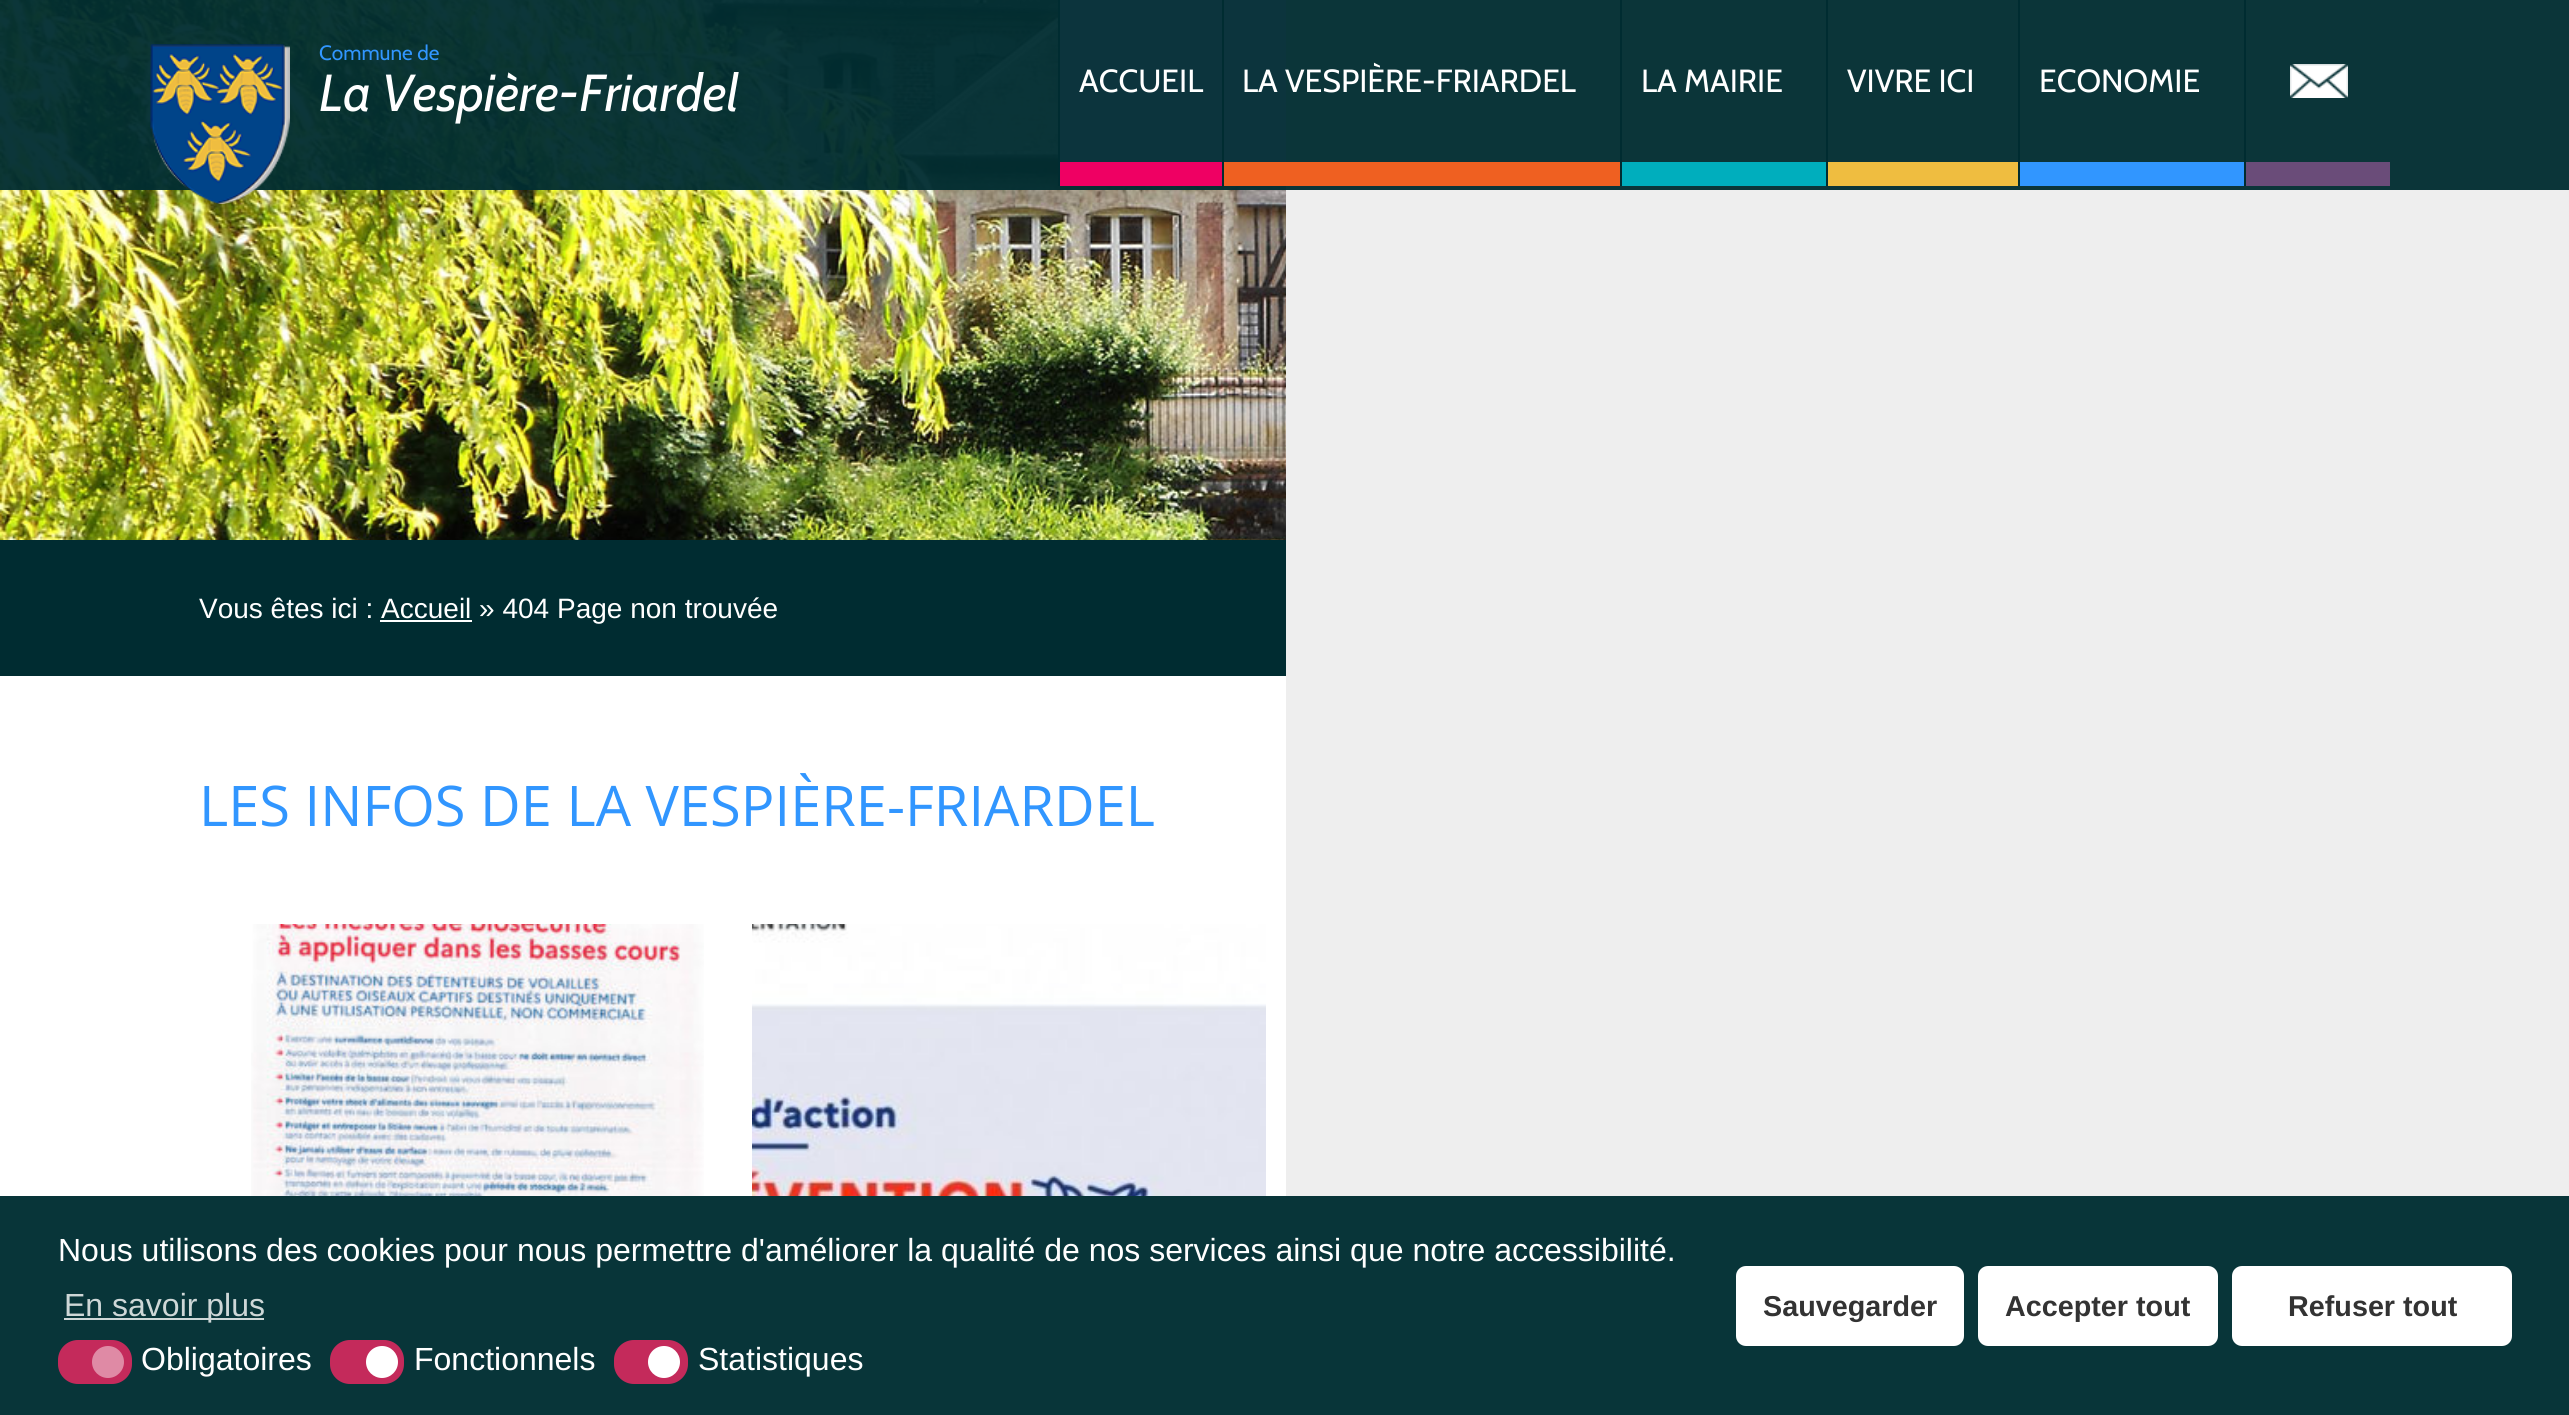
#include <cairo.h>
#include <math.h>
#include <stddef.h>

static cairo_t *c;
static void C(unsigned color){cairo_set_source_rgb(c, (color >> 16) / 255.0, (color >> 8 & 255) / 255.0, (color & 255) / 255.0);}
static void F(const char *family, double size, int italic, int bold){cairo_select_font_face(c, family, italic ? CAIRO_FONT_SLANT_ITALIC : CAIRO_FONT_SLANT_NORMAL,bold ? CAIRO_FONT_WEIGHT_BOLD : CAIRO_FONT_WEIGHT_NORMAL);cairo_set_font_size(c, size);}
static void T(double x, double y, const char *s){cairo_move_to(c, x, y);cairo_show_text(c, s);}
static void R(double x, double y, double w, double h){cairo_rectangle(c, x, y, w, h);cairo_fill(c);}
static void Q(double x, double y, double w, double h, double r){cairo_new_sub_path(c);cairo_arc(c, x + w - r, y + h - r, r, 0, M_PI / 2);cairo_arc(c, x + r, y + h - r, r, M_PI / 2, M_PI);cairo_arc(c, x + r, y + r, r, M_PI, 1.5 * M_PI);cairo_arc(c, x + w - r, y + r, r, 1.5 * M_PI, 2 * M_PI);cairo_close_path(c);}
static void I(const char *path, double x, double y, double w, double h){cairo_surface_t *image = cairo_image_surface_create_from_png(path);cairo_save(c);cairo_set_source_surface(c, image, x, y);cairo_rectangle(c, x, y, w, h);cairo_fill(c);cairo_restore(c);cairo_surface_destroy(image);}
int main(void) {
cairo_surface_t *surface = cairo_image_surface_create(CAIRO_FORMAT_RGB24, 2569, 1415);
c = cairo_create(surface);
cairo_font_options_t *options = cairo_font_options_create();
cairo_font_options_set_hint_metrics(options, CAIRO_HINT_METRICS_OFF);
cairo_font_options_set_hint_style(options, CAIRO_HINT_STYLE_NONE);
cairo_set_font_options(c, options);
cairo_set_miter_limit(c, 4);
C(0xffffff);
cairo_paint(c);
I("1.png",0,0,1286,540);
C(0xeeeeee);
R(1286,0,1283,1196);
cairo_set_source_rgba(c,0,0.173,0.192,0.95);
R(0,0,2569,190);
I("2.png",150,44,140,160);
F("Cabin",20.75,0,0);
C(0x3196ff);
T(319,60,"Commune de");
F("Cabin",52,1,0);
C(0xffffff);
T(319,111,"La Vespière-Friardel");
C(0x0c343d);
R(1060,0,162,162);
C(0x002c31);
R(1058,0,2,186);
C(0xef0063);
R(1060,162,162,24);
F("Cabin",32,0,0);
C(0xffffff);
T(1079,92,"ACCUEIL");
C(0x0c343d);
R(1224,0,62,162);
C(0x002c31);
R(1222,0,2,186);
C(0xef6021);
R(1224,162,396,24);
C(0xffffff);
T(1242,92,"LA VESPIÈRE-FRIARDEL");
C(0x002c31);
R(1620,0,2,186);
C(0x00aebd);
R(1622,162,204,24);
C(0xffffff);
T(1641,92,"LA MAIRIE");
C(0x002c31);
R(1826,0,2,186);
C(0xefbd40);
R(1828,162,190,24);
C(0xffffff);
T(1847,92,"VIVRE ICI");
C(0x002c31);
R(2018,0,2,186);
C(0x3196ff);
R(2020,162,224,24);
C(0xffffff);
T(2039,92,"ECONOMIE");
C(0x002c31);
R(2244,0,2,186);
I("3.png",2290,64,58,34);
C(0x6a4c79);
R(2246,162,144,24);
C(0x002c31);
R(0,540,1286,136);
F("Liberation Sans",28,0,0);
C(0xffffff);
T(199,618,"Vous êtes ici : Accueil » 404 Page non trouvée");
R(380,620,92,2);
F("Open Sans",56,0,0);
C(0x3196ff);
T(199,826,"LES INFOS DE LA VESPIÈRE-FRIARDEL");
I("4.png",251,924,453,272);
I("5.png",752,924,514,272);
C(0x083539);
R(0,1196,2569,219);
F("Liberation Sans",32,0,0);
C(0xffffff);
T(58,1261,"Nous utilisons des cookies pour nous permettre d'améliorer la qualité de nos services ainsi que notre accessibilité.");
C(0xced7d7);
R(64,1318,200,2);
T(64,1316,"En savoir plus");
C(0xc42a5b);
Q(58,1340,74,44,20);
cairo_fill(c);
C(0xdf8aa5);
cairo_arc(c,108,1362,16,0,2 * M_PI);
cairo_fill(c);
C(0xffffff);
T(141,1370,"Obligatoires");
C(0xc42a5b);
Q(330,1340,74,44,20);
cairo_fill(c);
C(0xffffff);
cairo_arc(c,382,1362,16,0,2 * M_PI);
cairo_fill(c);
T(414,1370,"Fonctionnels");
C(0xc42a5b);
Q(614,1340,74,44,20);
cairo_fill(c);
C(0xffffff);
cairo_arc(c,664,1362,16,0,2 * M_PI);
cairo_fill(c);
T(698,1370,"Statistiques");
Q(1736,1266,228,80,10);
cairo_fill(c);
F("Liberation Sans",28.75,0,1);
C(0x333333);
T(1763,1316,"Sauvegarder");
C(0xffffff);
Q(1978,1266,240,80,10);
cairo_fill(c);
C(0x333333);
T(2005,1316,"Accepter tout");
C(0xffffff);
Q(2232,1266,280,80,10);
cairo_fill(c);
C(0x333333);
T(2288,1316,"Refuser tout");
cairo_surface_write_to_png(surface, "o.png");
cairo_font_options_destroy(options);
cairo_destroy(c);
cairo_surface_destroy(surface);
return 0;
}
